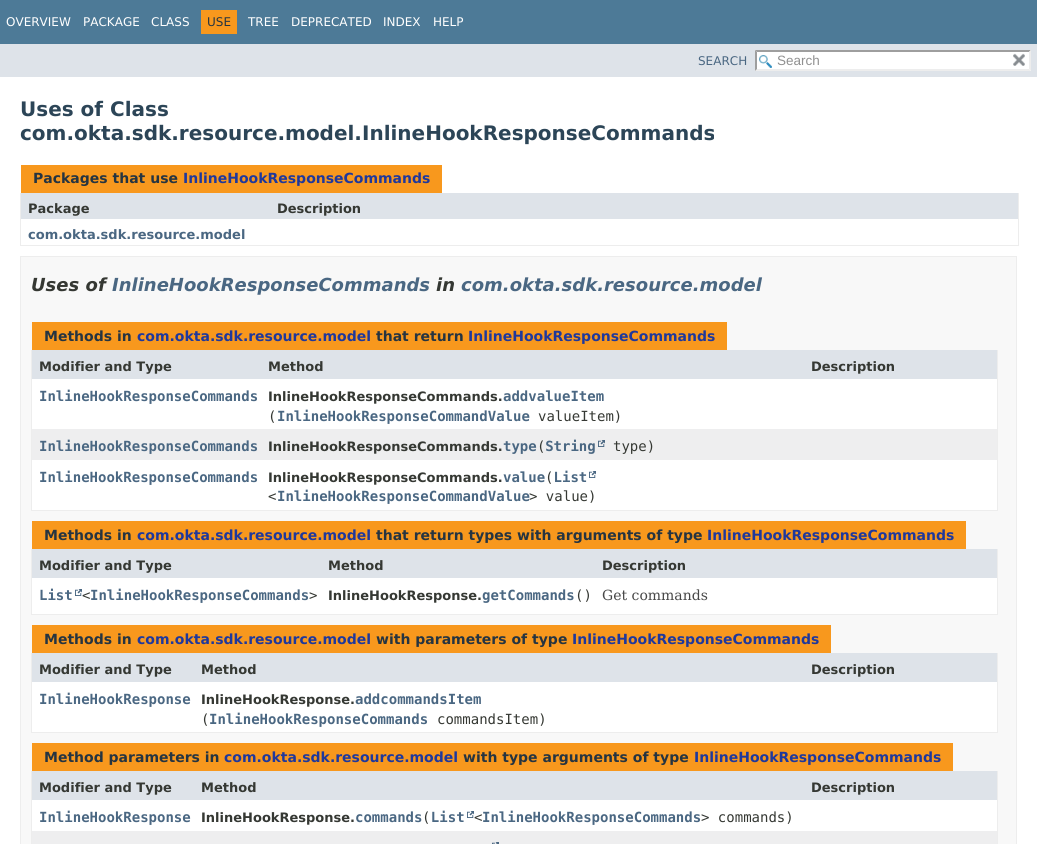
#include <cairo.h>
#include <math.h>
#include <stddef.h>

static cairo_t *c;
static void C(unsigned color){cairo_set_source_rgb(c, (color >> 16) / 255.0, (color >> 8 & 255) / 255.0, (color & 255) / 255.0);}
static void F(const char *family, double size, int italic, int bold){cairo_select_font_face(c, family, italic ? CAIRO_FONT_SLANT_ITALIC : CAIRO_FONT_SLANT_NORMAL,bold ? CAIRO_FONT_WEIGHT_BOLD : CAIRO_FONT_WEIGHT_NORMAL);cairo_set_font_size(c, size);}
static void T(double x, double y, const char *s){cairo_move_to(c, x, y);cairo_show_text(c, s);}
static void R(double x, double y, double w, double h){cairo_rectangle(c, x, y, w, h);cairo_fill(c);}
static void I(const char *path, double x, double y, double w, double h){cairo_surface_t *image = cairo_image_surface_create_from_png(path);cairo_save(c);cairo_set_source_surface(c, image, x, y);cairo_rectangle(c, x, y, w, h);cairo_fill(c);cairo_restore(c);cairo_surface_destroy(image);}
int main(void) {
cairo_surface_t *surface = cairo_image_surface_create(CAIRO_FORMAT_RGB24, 1037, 844);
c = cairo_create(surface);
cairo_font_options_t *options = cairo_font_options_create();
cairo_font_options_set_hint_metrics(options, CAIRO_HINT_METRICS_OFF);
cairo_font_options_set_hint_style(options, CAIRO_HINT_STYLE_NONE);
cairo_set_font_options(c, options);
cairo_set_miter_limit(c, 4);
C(0xffffff);
cairo_paint(c);
C(0x4d7a97);
R(0,0,1037,44);
F("DejaVu Sans",12,0,0);
C(0xffffff);
T(6,26,"OVERVIEW");
T(83,26,"PACKAGE");
T(151,26,"CLASS");
C(0xf8981d);
R(201,10,36,24);
C(0x253441);
T(207,26,"USE");
C(0xffffff);
T(248,26,"TREE");
T(291,26,"DEPRECATED");
T(383,26,"INDEX");
T(433,26,"HELP");
C(0xdee3e9);
R(0,44,1037,33);
C(0x4a6782);
T(698,65,"SEARCH");
C(0xffffff);
R(755,50,276,21);
I("1.png",759,55,13,13);
C(0x9e9e9e);
cairo_new_path(c);
cairo_move_to(c,755,50);
cairo_line_to(c,1031,50);
cairo_line_to(c,1029,52);
cairo_line_to(c,757,52);
cairo_close_path(c);
cairo_fill(c);
C(0xededed);
cairo_new_path(c);
cairo_move_to(c,1031,50);
cairo_line_to(c,1031,71);
cairo_line_to(c,1029,69);
cairo_line_to(c,1029,52);
cairo_close_path(c);
cairo_fill(c);
cairo_new_path(c);
cairo_move_to(c,1031,71);
cairo_line_to(c,755,71);
cairo_line_to(c,757,69);
cairo_line_to(c,1029,69);
cairo_close_path(c);
cairo_fill(c);
C(0x9e9e9e);
cairo_new_path(c);
cairo_move_to(c,755,71);
cairo_line_to(c,755,50);
cairo_line_to(c,757,52);
cairo_line_to(c,757,69);
cairo_close_path(c);
cairo_fill(c);
F("Liberation Sans",13.5,0,0);
C(0x909090);
T(777,65,"Search");
I("2.png",1013,53,12,13);
F("DejaVu Sans",20,0,1);
C(0x2c4557);
T(20,116,"Uses of Class");
T(20,140,"com.okta.sdk.resource.model.InlineHookResponseCommands");
C(0xf8981d);
R(21,165,421,28);
F("DejaVu Sans",14,0,1);
C(0x253441);
T(33,183,"Packages that use");
C(0x1f389c);
T(183,183,"InlineHookResponseCommands");
C(0xededed);
R(1018,193,1,53);
R(20,245,999,1);
R(20,193,1,53);
C(0xdee3e9);
R(21,193,997,26);
F("DejaVu Sans",13,0,1);
C(0x353833);
T(28,213,"Package");
T(277,213,"Description");
C(0x4a6782);
T(28,239,"com.okta.sdk.resource.model");
C(0xf8f8f8);
cairo_rectangle(c,20.5,256.5,996,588);
cairo_fill_preserve(c);
C(0xededed);
cairo_set_line_width(c,1);
cairo_stroke(c);
F("DejaVu Sans",18,1,1);
C(0x353833);
T(31,291,"Uses of");
C(0x4a6782);
T(112,291,"InlineHookResponseCommands");
C(0x353833);
T(436,291,"in");
C(0x4a6782);
T(461,291,"com.okta.sdk.resource.model");
C(0xf8981d);
R(32,322,695,28);
F("DejaVu Sans",14,0,1);
C(0x253441);
T(44,341,"Methods in");
C(0x1f389c);
T(137,341,"com.okta.sdk.resource.model");
C(0x253441);
T(376,341,"that return");
C(0x1f389c);
T(468,341,"InlineHookResponseCommands");
C(0xededed);
R(997,350,1,161);
R(31,510,967,1);
R(31,350,1,161);
C(0xdee3e9);
R(32,350,965,29);
F("DejaVu Sans",13,0,1);
C(0x353833);
T(39,371,"Modifier and Type");
T(268,371,"Method");
T(811,371,"Description");
C(0xffffff);
R(32,379,965,50);
F("DejaVu Sans Mono",14,0,1);
C(0x4a6782);
T(39,401,"InlineHookResponseCommands");
F("DejaVu Sans",13,0,1);
C(0x353833);
T(268,401,"InlineHookResponseCommands.");
F("DejaVu Sans Mono",14,0,1);
C(0x4a6782);
T(503,401,"addvalueItem");
F("DejaVu Sans Mono",14,0,0);
C(0x353833);
T(268,421,"(");
F("DejaVu Sans Mono",14,0,1);
C(0x4a6782);
T(277,421,"InlineHookResponseCommandValue");
F("DejaVu Sans Mono",14,0,0);
C(0x353833);
T(538,421,"valueItem)");
C(0xeeeeef);
R(32,429,965,31);
F("DejaVu Sans Mono",14,0,1);
C(0x4a6782);
T(39,451,"InlineHookResponseCommands");
F("DejaVu Sans",13,0,1);
C(0x353833);
T(268,451,"InlineHookResponseCommands.");
F("DejaVu Sans Mono",14,0,1);
C(0x4a6782);
T(503,451,"type String");
F("DejaVu Sans Mono",14,0,0);
C(0x353833);
T(537,451,"(");
I("3.png",598,440,7,7);
T(613,451,"type)");
C(0xffffff);
R(32,460,965,50);
F("DejaVu Sans Mono",14,0,1);
C(0x4a6782);
T(39,482,"InlineHookResponseCommands");
T(503,482,"value List");
F("DejaVu Sans Mono",14,0,0);
C(0x353833);
T(545,482,"(");
I("4.png",589,471,7,7);
T(268,501,"<");
F("DejaVu Sans Mono",14,0,1);
C(0x4a6782);
T(277,501,"InlineHookResponseCommandValue");
F("DejaVu Sans Mono",14,0,0);
C(0x353833);
T(529,501,"> value)");
F("DejaVu Sans",13,0,1);
T(268,482,"InlineHookResponseCommands.");
C(0xf8981d);
R(32,521,934,28);
F("DejaVu Sans",14,0,1);
C(0x253441);
T(44,540,"Methods in");
C(0x1f389c);
T(137,540,"com.okta.sdk.resource.model");
C(0x253441);
T(376,540,"that return types with arguments of type");
C(0x1f389c);
T(707,540,"InlineHookResponseCommands");
C(0xededed);
R(997,549,1,66);
R(31,614,967,1);
R(31,549,1,66);
C(0xdee3e9);
R(32,549,965,29);
F("DejaVu Sans",13,0,1);
C(0x353833);
T(39,570,"Modifier and Type");
T(328,570,"Method");
T(602,570,"Description");
C(0xffffff);
R(32,578,965,36);
F("DejaVu Sans Mono",14,0,1);
C(0x4a6782);
T(39,600,"List");
I("4.png",75,589,7,7);
F("DejaVu Sans Mono",14,0,0);
C(0x353833);
T(82,600,"<");
F("DejaVu Sans Mono",14,0,1);
C(0x4a6782);
T(90,600,"InlineHookResponseCommands");
F("DejaVu Sans Mono",14,0,0);
C(0x353833);
T(309,600,">");
F("DejaVu Sans",13,0,1);
T(328,600,"InlineHookResponse.");
F("DejaVu Sans Mono",14,0,1);
C(0x4a6782);
T(482,600,"getCommands");
F("DejaVu Sans Mono",14,0,0);
C(0x353833);
T(575,600,"()");
F("DejaVu Serif",14,0,0);
C(0x474747);
T(602,600,"Get commands");
C(0xf8981d);
R(32,625,799,28);
F("DejaVu Sans",14,0,1);
C(0x253441);
T(44,644,"Methods in");
C(0x1f389c);
T(137,644,"com.okta.sdk.resource.model");
C(0x253441);
T(376,644,"with parameters of type");
C(0x1f389c);
T(572,644,"InlineHookResponseCommands");
C(0xededed);
R(997,653,1,80);
R(31,732,967,1);
R(31,653,1,80);
C(0xdee3e9);
R(32,653,965,29);
F("DejaVu Sans",13,0,1);
C(0x353833);
T(39,674,"Modifier and Type");
T(201,674,"Method");
T(811,674,"Description");
C(0xffffff);
R(32,682,965,50);
F("DejaVu Sans Mono",14,0,1);
C(0x4a6782);
T(39,704,"InlineHookResponse");
F("DejaVu Sans",13,0,1);
C(0x353833);
T(201,704,"InlineHookResponse.");
F("DejaVu Sans Mono",14,0,1);
C(0x4a6782);
T(355,704,"addcommandsItem");
F("DejaVu Sans Mono",14,0,0);
C(0x353833);
T(201,724,"(");
F("DejaVu Sans Mono",14,0,1);
C(0x4a6782);
T(209,724,"InlineHookResponseCommands");
F("DejaVu Sans Mono",14,0,0);
C(0x353833);
T(437,724,"commandsItem)");
C(0xf8981d);
R(32,743,921,28);
F("DejaVu Sans",14,0,1);
C(0x253441);
T(44,762,"Method parameters in");
C(0x1f389c);
T(224,762,"com.okta.sdk.resource.model");
C(0x253441);
T(463,762,"with type arguments of type");
C(0x1f389c);
T(694,762,"InlineHookResponseCommands");
C(0xededed);
R(997,771,1,73);
R(31,771,1,73);
C(0xdee3e9);
R(32,771,965,29);
F("DejaVu Sans",13,0,1);
C(0x353833);
T(39,792,"Modifier and Type");
T(201,792,"Method");
T(811,792,"Description");
C(0xffffff);
R(32,800,965,31);
F("DejaVu Sans Mono",14,0,1);
C(0x4a6782);
T(39,822,"InlineHookResponse");
F("DejaVu Sans",13,0,1);
C(0x353833);
T(201,822,"InlineHookResponse.");
F("DejaVu Sans Mono",14,0,1);
C(0x4a6782);
T(355,822,"commands List");
T(482,822,"InlineHookResponseCommands");
F("DejaVu Sans Mono",14,0,0);
C(0x353833);
T(422,822,"(");
I("4.png",467,811,7,7);
T(474,822,"<");
T(701,822,"> commands)");
C(0xeeeeef);
R(32,831,965,13);
I("5.png",492,842,7,2);
cairo_surface_write_to_png(surface, "o.png");
cairo_font_options_destroy(options);
cairo_destroy(c);
cairo_surface_destroy(surface);
return 0;
}
